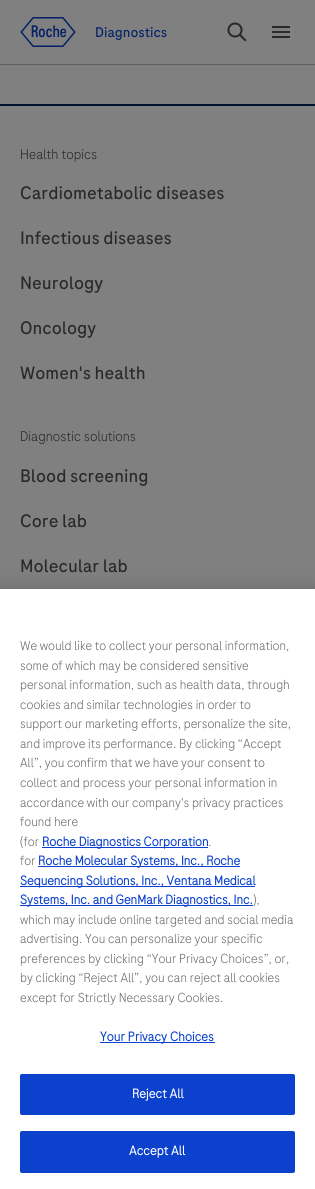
#include <cairo.h>
#include <math.h>
#include <stddef.h>

static cairo_t *c;
static void C(unsigned color){cairo_set_source_rgb(c, (color >> 16) / 255.0, (color >> 8 & 255) / 255.0, (color & 255) / 255.0);}
static void F(const char *family, double size, int italic, int bold){cairo_select_font_face(c, family, italic ? CAIRO_FONT_SLANT_ITALIC : CAIRO_FONT_SLANT_NORMAL,bold ? CAIRO_FONT_WEIGHT_BOLD : CAIRO_FONT_WEIGHT_NORMAL);cairo_set_font_size(c, size);}
static void T(double x, double y, const char *s){cairo_move_to(c, x, y);cairo_show_text(c, s);}
static void L(double x, double y, const char *s, double letter, double word){cairo_move_to(c, x, y);while (*s) {char ch[5] = {0};int n = 0;do ch[n++] = *s++; while ((*s & 0xC0) == 0x80);cairo_show_text(c, ch);cairo_rel_move_to(c, letter + word * (*ch == ' '), 0);}}
static void R(double x, double y, double w, double h){cairo_rectangle(c, x, y, w, h);cairo_fill(c);}
static void Q(double x, double y, double w, double h, double r){cairo_new_sub_path(c);cairo_arc(c, x + w - r, y + h - r, r, 0, M_PI / 2);cairo_arc(c, x + r, y + h - r, r, M_PI / 2, M_PI);cairo_arc(c, x + r, y + r, r, M_PI, 1.5 * M_PI);cairo_arc(c, x + w - r, y + r, r, 1.5 * M_PI, 2 * M_PI);cairo_close_path(c);}
static void S(double x, double y, double w, double h, double r, double blur, double alpha){cairo_push_group_with_content(c, CAIRO_CONTENT_ALPHA);cairo_set_operator(c, CAIRO_OPERATOR_SOURCE);for (int i = 15; i >= -15 && fmin(w, h) + blur * i / 3 > 0; i -= 2) {double e = blur * i / 6;cairo_set_source_rgba(c, 0, 0, 0, alpha * erfc((i - 1) / 8.5) / 2);Q(x - e, y - e, w + 2 * e, h + 2 * e, fmax(0, fmin(r + e + blur * .6, fmin(w, h) / 2 + e)));cairo_fill(c);}cairo_pattern_t *soft = cairo_pop_group(c);cairo_mask(c, soft);cairo_pattern_destroy(soft);}
static void I(const char *path, double x, double y, double w, double h){cairo_surface_t *image = cairo_image_surface_create_from_png(path);cairo_save(c);cairo_set_source_surface(c, image, x, y);cairo_rectangle(c, x, y, w, h);cairo_fill(c);cairo_restore(c);cairo_surface_destroy(image);}
int main(void) {
cairo_surface_t *surface = cairo_image_surface_create(CAIRO_FORMAT_RGB24, 315, 1189);
c = cairo_create(surface);
cairo_font_options_t *options = cairo_font_options_create();
cairo_font_options_set_hint_metrics(options, CAIRO_HINT_METRICS_OFF);
cairo_font_options_set_hint_style(options, CAIRO_HINT_STYLE_NONE);
cairo_set_font_options(c, options);
cairo_set_miter_limit(c, 4);
C(0x808080);
cairo_paint(c);
C(0x615d5b);
R(0,64,315,1);
I("1.png",20,17,56,30);
F("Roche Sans",14,0,0);
C(0x062167);
T(95,37,"Diagnostics");
I("2.png",227,22,20,20);
I("3.png",272,26,18,12);
C(0x011233);
R(0,104,315,2);
F("Roche Sans Light",14,0,0);
C(0x2a2828);
T(20,159,"Health topics");
F("Roche Sans",18,0,0);
T(20,199,"Cardiometabolic diseases");
T(20,244,"Infectious diseases");
T(20,289,"Neurology");
T(20,334,"Oncology");
T(20,379,"Women's health");
F("Roche Sans Light",14,0,0);
T(20,441,"Diagnostic solutions");
F("Roche Sans",18,0,0);
T(20,482,"Blood screening");
T(20,527,"Core lab");
T(20,572,"Molecular lab");
C(0x000000);
S(0,589,315,600,0,9,.2);
C(0xffffff);
R(0,589,315,600);
F("Roche Sans Light",13,0,0);
C(0x696969);
T(20,650,"We would like to collect your personal information,");
T(20,670,"some of which may be considered sensitive");
T(20,689,"personal information, such as health data, through");
T(20,709,"cookies and similar technologies in order to");
T(20,728,"support our marketing efforts, personalize the site,");
T(20,748,"and improve its performance. By clicking “Accept");
T(20,767,"All”, you confirm that we have your consent to");
T(20,787,"collect and process your personal information in");
T(20,807,"accordance with our company's privacy practices");
T(20,826,"found here");
T(20,846,"(for");
C(0x0b41cd);
R(42,847,166,1);
F("Roche Sans",13,0,1);
T(42,846,"Roche Diagnostics Corporation");
F("Roche Sans Light",13,0,0);
C(0x696969);
T(208,846,".");
T(20,865,"for");
C(0x0b41cd);
R(38,866,202,1);
F("Roche Sans",13,0,1);
T(38,865,"Roche Molecular Systems, Inc., Roche");
R(20,886,235,1);
T(20,885,"Sequencing Solutions, Inc., Ventana Medical");
R(20,905,233,1);
T(20,904,"Systems, Inc. and GenMark Diagnostics, Inc.");
F("Roche Sans Light",13,0,0);
C(0x696969);
T(253,904,"),");
T(20,924,"which may include online targeted and social media");
T(20,943,"advertising. You can personalize your specific");
T(20,963,"preferences by clicking “Your Privacy Choices”, or,");
T(20,982,"by clicking “Reject All”, you can reject all cookies");
T(20,1002,"except for Strictly Necessary Cookies.");
C(0x0b41cd);
R(100,1042,115,1);
F("Roche Sans",13,0,1);
L(100,1041,"Your Privacy Choices",.1,0);
Q(20.5,1074.5,274,40,1.5);
cairo_fill_preserve(c);
cairo_set_line_width(c,1);
cairo_stroke(c);
C(0xffffff);
L(132,1098,"Reject All",.1,0);
C(0x0b41cd);
Q(20.5,1131.5,274,41,1.5);
cairo_fill_preserve(c);
cairo_stroke(c);
C(0xffffff);
L(129,1155,"Accept All",.1,0);
cairo_surface_write_to_png(surface, "o.png");
cairo_font_options_destroy(options);
cairo_destroy(c);
cairo_surface_destroy(surface);
return 0;
}
